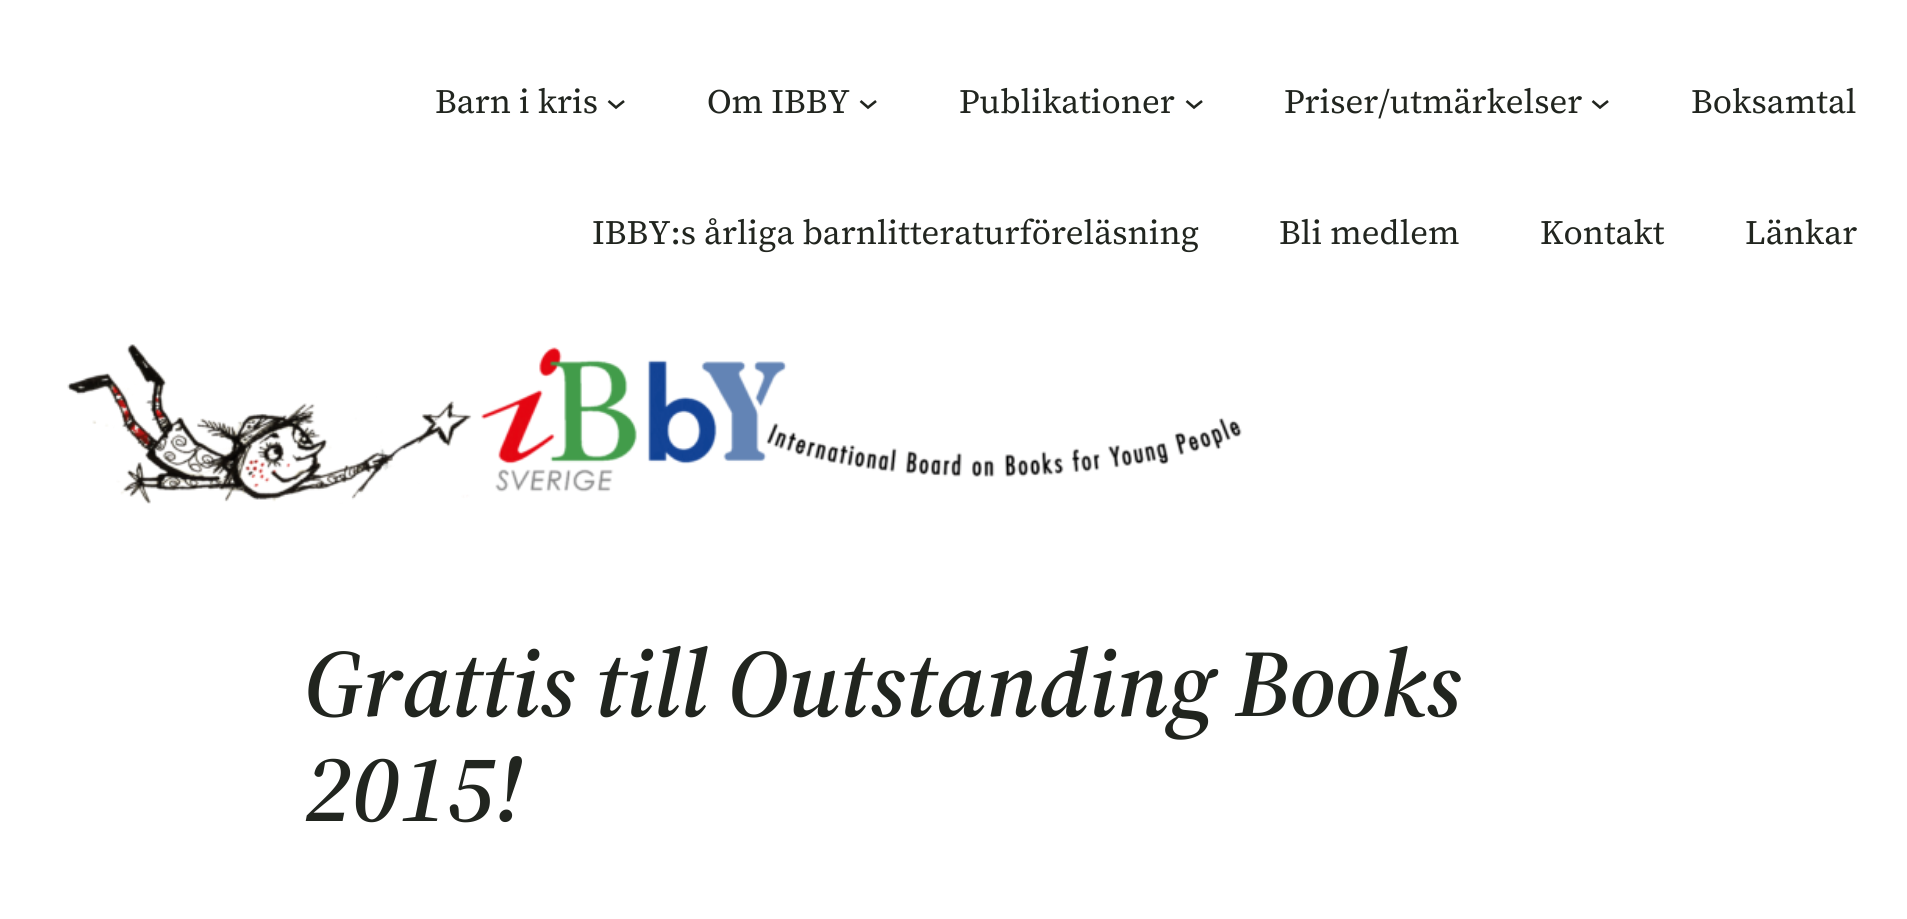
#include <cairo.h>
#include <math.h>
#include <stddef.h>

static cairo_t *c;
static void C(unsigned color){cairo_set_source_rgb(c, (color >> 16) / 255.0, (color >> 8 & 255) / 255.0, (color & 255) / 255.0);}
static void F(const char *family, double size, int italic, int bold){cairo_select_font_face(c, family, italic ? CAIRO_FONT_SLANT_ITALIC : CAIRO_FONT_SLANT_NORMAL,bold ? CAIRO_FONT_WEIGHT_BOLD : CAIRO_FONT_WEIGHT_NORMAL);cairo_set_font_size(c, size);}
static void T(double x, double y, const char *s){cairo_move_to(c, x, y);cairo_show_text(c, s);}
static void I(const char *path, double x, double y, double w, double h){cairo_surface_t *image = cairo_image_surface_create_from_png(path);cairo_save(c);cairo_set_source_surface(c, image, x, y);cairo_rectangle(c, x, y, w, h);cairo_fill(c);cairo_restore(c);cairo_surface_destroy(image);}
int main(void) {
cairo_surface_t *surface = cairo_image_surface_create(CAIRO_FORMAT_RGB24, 1907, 919);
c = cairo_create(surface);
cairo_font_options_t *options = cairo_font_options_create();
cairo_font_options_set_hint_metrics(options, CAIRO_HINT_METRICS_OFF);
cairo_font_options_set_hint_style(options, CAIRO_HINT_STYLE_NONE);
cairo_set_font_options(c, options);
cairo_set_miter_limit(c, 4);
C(0xffffff);
cairo_paint(c);
F("Source Serif 4",34.1,0,0);
C(0x21251f);
T(435,113,"Barn i kris");
cairo_new_path(c);
cairo_move_to(c,608.5,101);
cairo_line_to(c,616,107.5);
cairo_line_to(c,624,101);
cairo_set_line_width(c,2.6);
cairo_stroke(c);
T(707,113,"Om IBBY");
cairo_new_path(c);
cairo_move_to(c,860.5,101);
cairo_line_to(c,868,107.5);
cairo_line_to(c,876,101);
cairo_stroke(c);
T(959,113,"Publikationer");
cairo_new_path(c);
cairo_move_to(c,1186.5,101);
cairo_line_to(c,1194,107.5);
cairo_line_to(c,1202,101);
cairo_stroke(c);
T(1284,113,"Priser/utmärkelser");
cairo_new_path(c);
cairo_move_to(c,1592.5,101);
cairo_line_to(c,1600,107.5);
cairo_line_to(c,1608,101);
cairo_stroke(c);
T(1691,113,"Boksamtal");
T(592,244,"IBBY:s årliga barnlitteraturföreläsning");
T(1279,244,"Bli medlem");
T(1540,244,"Kontakt");
T(1745,244,"Länkar");
I("1.png",67,344,1175,160);
F("Source Serif 4 SemiBold",95.5,1,0);
T(304,716,"Grattis till Outstanding Books");
T(304,821,"2015!");
cairo_surface_write_to_png(surface, "o.png");
cairo_font_options_destroy(options);
cairo_destroy(c);
cairo_surface_destroy(surface);
return 0;
}
